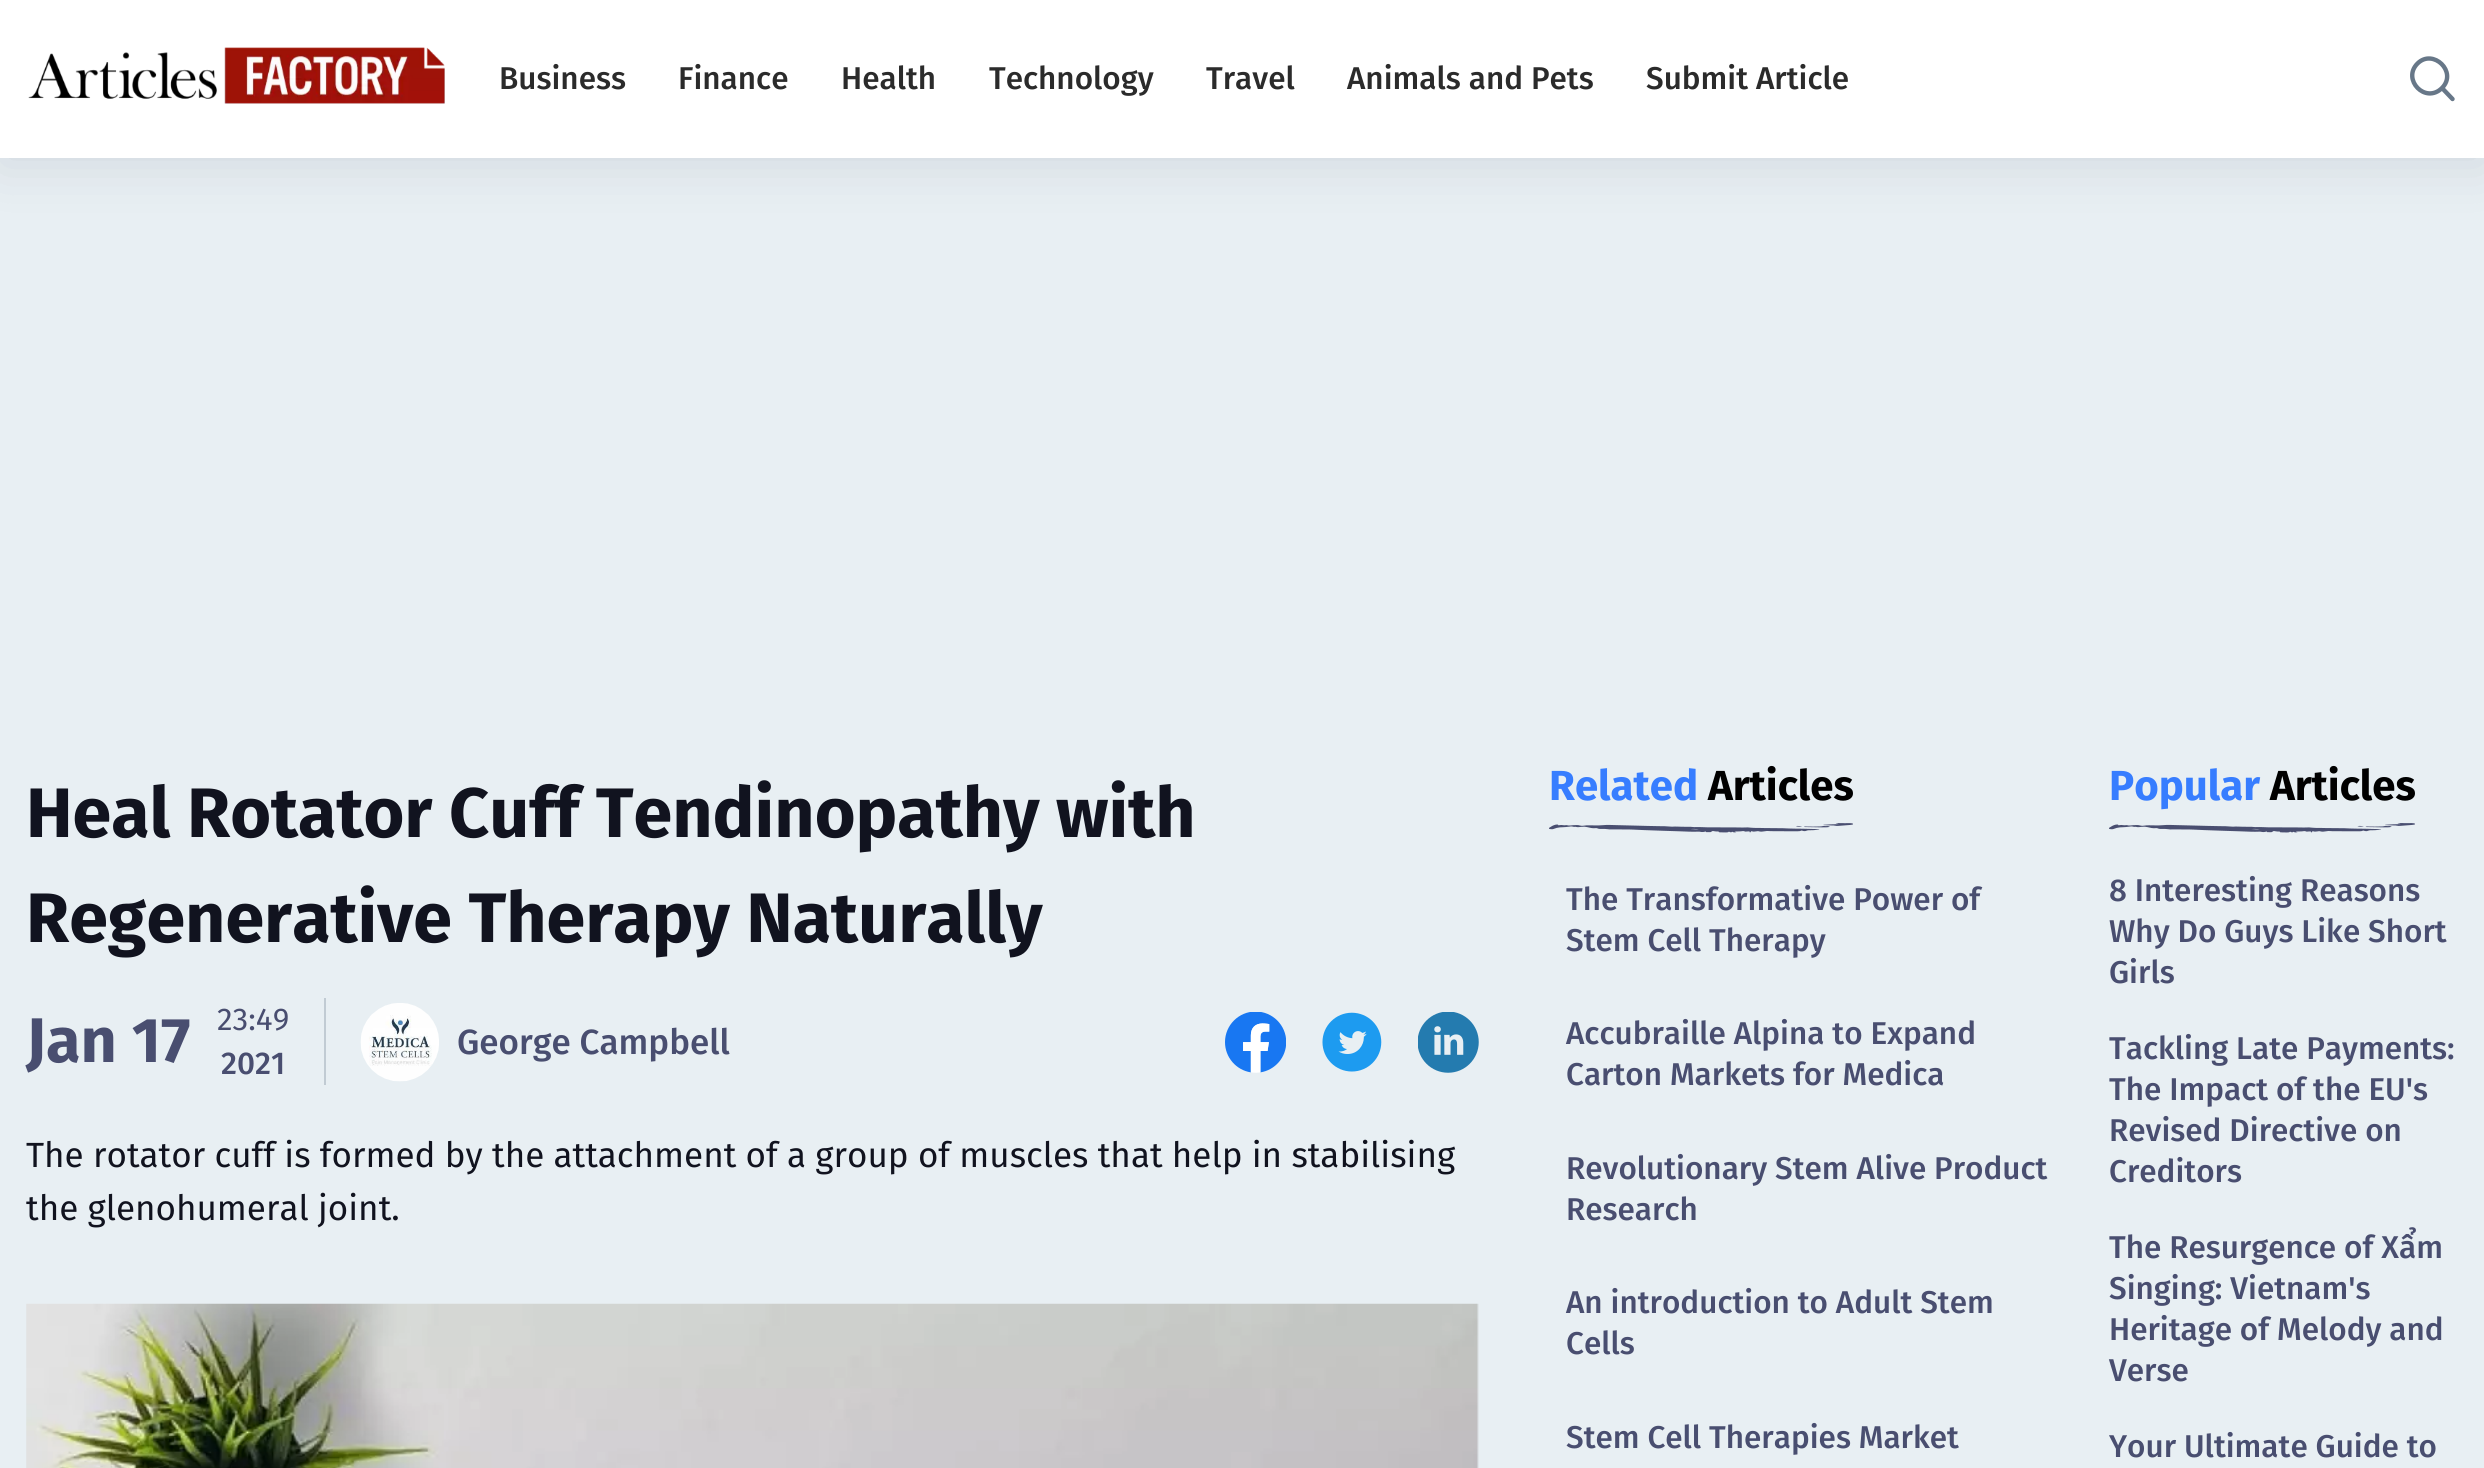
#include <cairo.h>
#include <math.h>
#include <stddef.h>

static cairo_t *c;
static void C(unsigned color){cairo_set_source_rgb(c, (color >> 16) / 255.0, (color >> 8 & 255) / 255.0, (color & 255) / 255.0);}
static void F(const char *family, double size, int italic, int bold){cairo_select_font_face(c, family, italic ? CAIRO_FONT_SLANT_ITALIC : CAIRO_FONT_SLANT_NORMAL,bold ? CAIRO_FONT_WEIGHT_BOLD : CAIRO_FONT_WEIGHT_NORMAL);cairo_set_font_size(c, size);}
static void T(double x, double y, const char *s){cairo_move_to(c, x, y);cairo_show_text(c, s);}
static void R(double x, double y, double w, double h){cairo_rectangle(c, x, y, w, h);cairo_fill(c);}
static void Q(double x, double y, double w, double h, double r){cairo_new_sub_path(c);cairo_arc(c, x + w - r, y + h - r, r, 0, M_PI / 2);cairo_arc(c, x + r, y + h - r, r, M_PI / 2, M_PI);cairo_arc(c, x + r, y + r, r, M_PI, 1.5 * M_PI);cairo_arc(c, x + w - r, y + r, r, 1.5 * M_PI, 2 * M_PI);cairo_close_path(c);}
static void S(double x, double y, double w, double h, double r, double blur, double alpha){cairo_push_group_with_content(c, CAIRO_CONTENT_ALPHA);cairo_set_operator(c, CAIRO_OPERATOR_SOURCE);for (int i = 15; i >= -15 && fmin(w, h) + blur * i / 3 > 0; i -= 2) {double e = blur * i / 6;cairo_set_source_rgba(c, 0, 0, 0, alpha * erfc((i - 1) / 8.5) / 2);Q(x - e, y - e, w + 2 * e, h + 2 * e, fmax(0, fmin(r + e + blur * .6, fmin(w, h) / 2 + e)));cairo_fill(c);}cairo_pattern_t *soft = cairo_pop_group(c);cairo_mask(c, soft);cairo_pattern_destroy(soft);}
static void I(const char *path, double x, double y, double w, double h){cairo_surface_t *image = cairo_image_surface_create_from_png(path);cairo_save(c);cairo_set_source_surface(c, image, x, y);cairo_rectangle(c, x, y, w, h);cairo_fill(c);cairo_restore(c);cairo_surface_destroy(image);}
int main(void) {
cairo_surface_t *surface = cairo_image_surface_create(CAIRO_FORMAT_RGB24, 2484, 1468);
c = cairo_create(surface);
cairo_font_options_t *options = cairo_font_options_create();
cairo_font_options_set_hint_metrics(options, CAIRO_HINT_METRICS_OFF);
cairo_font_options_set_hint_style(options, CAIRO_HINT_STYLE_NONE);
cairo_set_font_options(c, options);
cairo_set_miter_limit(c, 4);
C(0xe8eff3);
cairo_paint(c);
C(0x030025);
S(0,7,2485,158,0,26,.1);
C(0xffffff);
R(0,0,2484,158);
I("1.png",28,47,417,57);
F("Fira Sans Medium",31.5,0,0);
C(0x2b2b2b);
T(499,89,"Business");
T(678,89,"Finance");
T(841,89,"Health");
T(989,89,"Technology");
T(1206,89,"Travel");
T(1347,89,"Animals and Pets");
T(1646,89,"Submit Article");
cairo_new_path(c);
cairo_move_to(c,2452.5,99);
cairo_line_to(c,2442,88);
cairo_move_to(c,2442,88);
cairo_curve_to(c,2458,72,2433,48,2417.5,63.5);
cairo_curve_to(c,2401.5,79.5,2425.5,104.5,2442,88);
cairo_close_path(c);
C(0x677788);
cairo_set_line_width(c,4.4);
cairo_set_line_cap(c,CAIRO_LINE_CAP_ROUND);
cairo_stroke(c);
F("Fira Sans",70,0,1);
C(0x11131f);
T(26,837,"Heal Rotator Cuff Tendinopathy with");
T(26,942,"Regenerative Therapy Naturally");
F("Fira Sans",63,0,1);
C(0x494e70);
T(26,1062,"Jan 17");
F("Fira Sans",31.5,0,0);
T(217,1030,"23:49");
F("Fira Sans Medium",31.5,0,0);
T(221,1074,"2021");
C(0xc1cbd3);
R(324,998,2,87);
I("2.png",360,1003,79,79);
F("Fira Sans Medium",35,0,0);
C(0x494e70);
T(457,1054,"George Campbell");
I("3.png",1225,1012,61,61);
I("4.png",1322,1012,60,60);
I("5.png",1418,1012,61,61);
F("Fira Sans",35,0,0);
C(0x11131f);
T(26,1167,"The rotator cuff is formed by the attachment of a group of muscles that help in stabilising");
T(26,1220,"the glenohumeral joint.");
I("6.png",26,1303,1453,165);
F("Fira Sans",42,0,1);
C(0x377dff);
T(1549,800,"Related");
C(0x000000);
T(1708,800,"Articles");
I("7.png",1549,823,304,10);
F("Fira Sans Medium",31.5,0,0);
C(0x494e70);
T(1566,910,"The Transformative Power of");
T(1566,951,"Stem Cell Therapy");
T(1566,1044,"Accubraille Alpina to Expand");
T(1566,1085,"Carton Markets for Medica");
T(1566,1179,"Revolutionary Stem Alive Product");
T(1566,1220,"Research");
T(1566,1313,"An introduction to Adult Stem");
T(1566,1354,"Cells");
T(1566,1448,"Stem Cell Therapies Market");
F("Fira Sans",42,0,1);
C(0x377dff);
T(2109,800,"Popular");
C(0x000000);
T(2270,800,"Articles");
I("8.png",2109,823,306,10);
F("Fira Sans Medium",31.5,0,0);
C(0x494e70);
T(2109,901,"8 Interesting Reasons");
T(2109,942,"Why Do Guys Like Short");
T(2109,983,"Girls");
T(2109,1059,"Tackling Late Payments:");
T(2109,1100,"The Impact of the EU's");
T(2109,1141,"Revised Directive on");
T(2109,1182,"Creditors");
T(2109,1258,"The Resurgence of Xẩm");
T(2109,1299,"Singing: Vietnam's");
T(2109,1340,"Heritage of Melody and");
T(2109,1381,"Verse");
T(2109,1457,"Your Ultimate Guide to");
cairo_surface_write_to_png(surface, "o.png");
cairo_font_options_destroy(options);
cairo_destroy(c);
cairo_surface_destroy(surface);
return 0;
}
